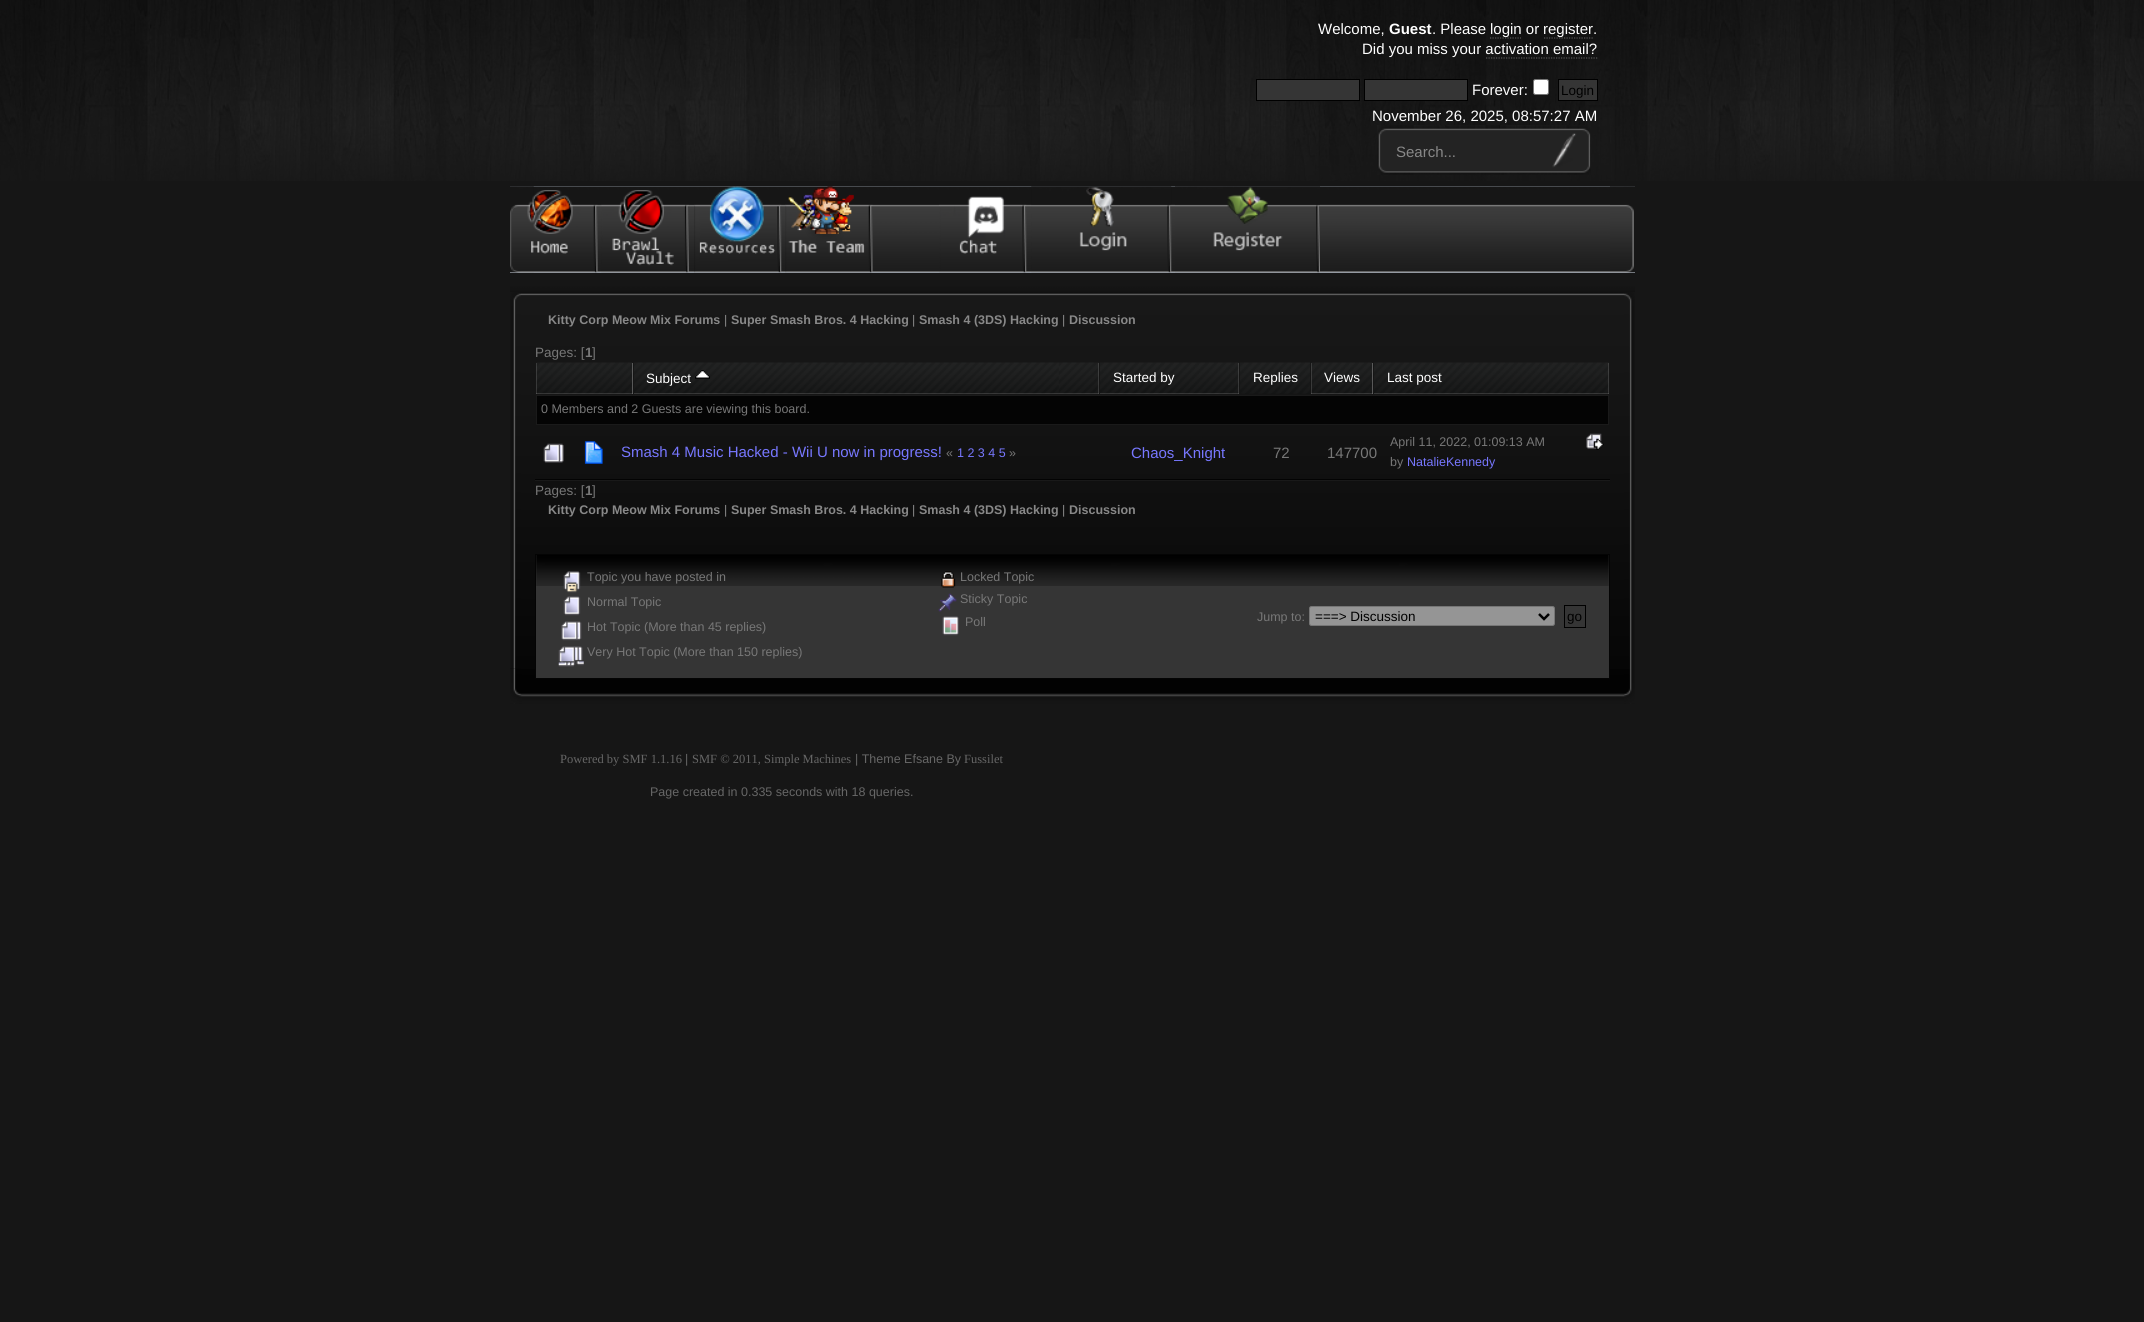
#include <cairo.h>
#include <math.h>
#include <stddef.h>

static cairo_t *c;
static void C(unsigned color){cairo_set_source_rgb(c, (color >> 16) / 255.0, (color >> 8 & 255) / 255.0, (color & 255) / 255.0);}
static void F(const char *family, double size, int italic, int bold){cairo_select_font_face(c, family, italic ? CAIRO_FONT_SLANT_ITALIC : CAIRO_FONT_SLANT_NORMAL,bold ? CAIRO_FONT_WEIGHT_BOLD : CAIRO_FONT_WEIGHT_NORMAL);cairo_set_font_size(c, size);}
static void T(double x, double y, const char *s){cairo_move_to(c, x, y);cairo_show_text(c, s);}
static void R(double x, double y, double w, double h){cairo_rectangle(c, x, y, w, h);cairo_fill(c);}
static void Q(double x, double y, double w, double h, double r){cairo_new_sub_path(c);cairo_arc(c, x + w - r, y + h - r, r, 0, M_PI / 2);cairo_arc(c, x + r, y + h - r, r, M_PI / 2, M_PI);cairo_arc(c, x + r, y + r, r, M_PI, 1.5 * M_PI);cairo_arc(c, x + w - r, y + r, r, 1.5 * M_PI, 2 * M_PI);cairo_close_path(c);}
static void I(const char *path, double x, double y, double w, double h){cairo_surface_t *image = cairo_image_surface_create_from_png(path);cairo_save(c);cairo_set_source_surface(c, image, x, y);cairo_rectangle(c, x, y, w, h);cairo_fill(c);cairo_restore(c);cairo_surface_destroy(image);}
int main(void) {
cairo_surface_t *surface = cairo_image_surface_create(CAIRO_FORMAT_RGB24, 2144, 1322);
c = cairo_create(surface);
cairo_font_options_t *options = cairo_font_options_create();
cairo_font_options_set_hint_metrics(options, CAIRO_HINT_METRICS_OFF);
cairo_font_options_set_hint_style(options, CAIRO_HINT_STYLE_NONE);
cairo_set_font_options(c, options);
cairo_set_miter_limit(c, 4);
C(0x161616);
cairo_paint(c);
I("1.png",0,0,2144,181);
F("Liberation Sans",15,0,0);
C(0xffffff);
T(1318,34,"Welcome,");
F("Liberation Sans",15,0,1);
T(1389,34,"Guest");
F("Liberation Sans",15,0,0);
T(1432,34,". Please");
cairo_new_path(c);
cairo_move_to(c,1490,38);
cairo_line_to(c,1521,38);
C(0x555555);
cairo_set_line_width(c,1.2);
cairo_set_dash(c,(double[]){1.25,1.25},2,0);
cairo_stroke(c);
C(0xffffff);
T(1490,34,"login or");
cairo_new_path(c);
cairo_move_to(c,1544,38);
cairo_line_to(c,1594,38);
C(0x555555);
cairo_stroke(c);
C(0xffffff);
T(1543,34,"register.");
T(1362,54,"Did you miss your activation email?");
cairo_new_path(c);
cairo_move_to(c,1486,58);
cairo_line_to(c,1597.5,58);
C(0x555555);
cairo_stroke(c);
C(0x353535);
cairo_rectangle(c,1256.5,79.5,103,21);
cairo_fill_preserve(c);
C(0x000000);
cairo_set_line_width(c,1);
cairo_set_dash(c,NULL,0,0);
cairo_stroke(c);
C(0x353535);
cairo_rectangle(c,1364.5,79.5,103,21);
cairo_fill_preserve(c);
C(0x000000);
cairo_stroke(c);
C(0xffffff);
T(1472,95,"Forever:");
Q(1533.5,79.5,15,15,2);
cairo_fill_preserve(c);
C(0x767676);
cairo_stroke(c);
C(0x353535);
cairo_rectangle(c,1558.5,79.5,39,21);
cairo_fill_preserve(c);
C(0x000000);
cairo_stroke(c);
F("Liberation Sans",13.5,0,0);
T(1561,95,"Login");
F("Liberation Sans",15,0,0);
C(0xffffff);
T(1372,121,"November 26, 2025, 08:57:27 AM");
I("2.png",1377,125,214,50);
C(0x888888);
T(1396,157,"Search...");
C(0xdbe6f7);
R(510,186,1125,87);
I("3.png",510,186,1125,87);
I("4.png",510,186,24,87);
I("5.png",1610,186,25,87);
I("6.png",510,190,88,83);
I("7.png",601,190,88,83);
I("8.png",694,186,88,87);
I("9.png",785,186,88,87);
I("10.png",939,196,88,77);
I("11.png",1031,186,141,87);
I("12.png",1175,186,145,87);
I("13.png",1629,703,6,1);
I("14.png",510,703,6,1);
I("15.png",510,668,1125,36);
I("16.png",1624,669,11,35);
I("17.png",510,668,12,36);
I("18.png",510,285,1125,384);
I("19.png",1624,292,11,377);
I("20.png",510,292,11,377);
F("Liberation Sans",12.5,0,1);
C(0x888888);
T(548,324,"Kitty Corp Meow Mix Forums");
F("Liberation Sans",12.5,0,0);
T(724,324,"|");
F("Liberation Sans",12.5,0,1);
T(731,324,"Super Smash Bros. 4 Hacking");
F("Liberation Sans",12.5,0,0);
T(912,324,"|");
F("Liberation Sans",12.5,0,1);
T(919,324,"Smash 4 (3DS) Hacking");
F("Liberation Sans",12.5,0,0);
T(1062,324,"|");
F("Liberation Sans",12.5,0,1);
T(1069,324,"Discussion");
F("Liberation Sans",13.5,0,0);
C(0x777777);
T(535,357,"Pages: [");
F("Liberation Sans",13.5,0,1);
T(585,357,"1");
F("Liberation Sans",13.5,0,0);
T(592,357,"]");
C(0x999999);
R(536,363,97,31);
I("21.png",536,362,97,32);
R(634,363,465,31);
I("22.png",634,362,465,32);
C(0xffffff);
T(646,383,"Subject");
I("23.png",695,370,15,9);
C(0x999999);
R(1100,363,139,31);
I("24.png",1100,362,139,32);
C(0xffffff);
T(1113,382,"Started by");
I("25.png",1240,362,70,32);
T(1253,382,"Replies");
C(0x999999);
R(1311,363,62,31);
I("26.png",1311,362,62,32);
C(0xffffff);
T(1324,382,"Views");
C(0x999999);
R(1374,363,235,31);
I("27.png",1374,362,235,32);
C(0xffffff);
T(1387,382,"Last post");
C(0x040404);
cairo_rectangle(c,536.5,395.5,1072,29);
cairo_fill_preserve(c);
C(0x1a1a1a);
cairo_stroke(c);
F("Liberation Sans",12.5,0,0);
C(0x777777);
T(541,413,"0 Members and 2 Guests are viewing this board.");
I("28.png",543,443,21,20);
I("29.png",584,441,19,23);
F("Liberation Sans",15,0,0);
C(0x7777ff);
T(621,457,"Smash 4 Music Hacked - Wii U now in progress!");
F("Liberation Sans",12.5,0,0);
C(0x777777);
T(946,457,"«");
C(0x7777ff);
T(957,457,"1 2 3 4 5");
C(0x777777);
T(1009,457,"»");
F("Liberation Sans",15,0,0);
C(0x7777ff);
T(1131,458,"Chaos_Knight");
C(0x777777);
T(1273,458,"72");
T(1327,458,"147700");
F("Liberation Sans",12.5,0,0);
T(1390,446,"April 11, 2022, 01:09:13 AM");
I("30.png",1586,433,18,17);
T(1390,466,"by");
C(0x7777ff);
T(1407,466,"NatalieKennedy");
C(0x030303);
R(535,479,1075,1);
C(0x191919);
R(535,480,1075,1);
F("Liberation Sans",13.5,0,0);
C(0x777777);
T(535,495,"Pages: [");
F("Liberation Sans",13.5,0,1);
T(585,495,"1");
F("Liberation Sans",13.5,0,0);
T(592,495,"]");
F("Liberation Sans",12.5,0,1);
C(0x888888);
T(548,514,"Kitty Corp Meow Mix Forums");
F("Liberation Sans",12.5,0,0);
T(724,514,"|");
F("Liberation Sans",12.5,0,1);
T(731,514,"Super Smash Bros. 4 Hacking");
F("Liberation Sans",12.5,0,0);
T(912,514,"|");
F("Liberation Sans",12.5,0,1);
T(919,514,"Smash 4 (3DS) Hacking");
F("Liberation Sans",12.5,0,0);
T(1062,514,"|");
F("Liberation Sans",12.5,0,1);
T(1069,514,"Discussion");
cairo_rectangle(c,535.5,554.5,1074,124);
C(0x040404);
cairo_stroke(c);
C(0x353535);
R(536,555,1073,123);
I("31.png",536,555,1073,31);
I("32.png",563,571,18,22);
F("Liberation Sans",12.5,0,0);
C(0x777777);
T(587,581,"Topic you have posted in");
I("33.png",563,596,18,20);
T(587,606,"Normal Topic");
I("34.png",561,621,21,20);
T(587,631,"Hot Topic (More than 45 replies)");
I("35.png",558,646,26,21);
T(587,656,"Very Hot Topic (More than 150 replies)");
I("36.png",941,571,15,17);
T(960,581,"Locked Topic");
I("37.png",938,593,19,19);
T(960,603,"Sticky Topic");
I("38.png",942,616,17,20);
T(965,626,"Poll");
T(1257,621,"Jump to:");
C(0x959595);
Q(1309.5,606.5,245,19,2);
cairo_fill_preserve(c);
C(0x767676);
cairo_stroke(c);
cairo_new_path(c);
cairo_move_to(c,1539,614);
cairo_line_to(c,1544,619);
cairo_line_to(c,1549,614);
C(0x000000);
cairo_set_line_width(c,2.5);
cairo_stroke(c);
F("Liberation Sans",13.5,0,0);
T(1315,621,"===> Discussion");
cairo_rectangle(c,1564.5,605.5,21,22);
cairo_set_line_width(c,1);
cairo_stroke(c);
T(1567,621,"go");
F("Liberation Serif",12.5,0,0);
C(0x666666);
T(560,763,"Powered by SMF 1.1.16");
F("Liberation Sans",12.5,0,0);
T(685,763,"|");
F("Liberation Serif",12.5,0,0);
T(692,763,"SMF © 2011, Simple Machines");
F("Liberation Sans",12.5,0,0);
T(855,763,"| Theme Efsane By");
F("Liberation Serif",12.5,0,0);
T(964,763,"Fussilet");
F("Liberation Sans",12.5,0,0);
T(650,796,"Page created in 0.335 seconds with 18 queries.");
cairo_surface_write_to_png(surface, "o.png");
cairo_font_options_destroy(options);
cairo_destroy(c);
cairo_surface_destroy(surface);
return 0;
}
